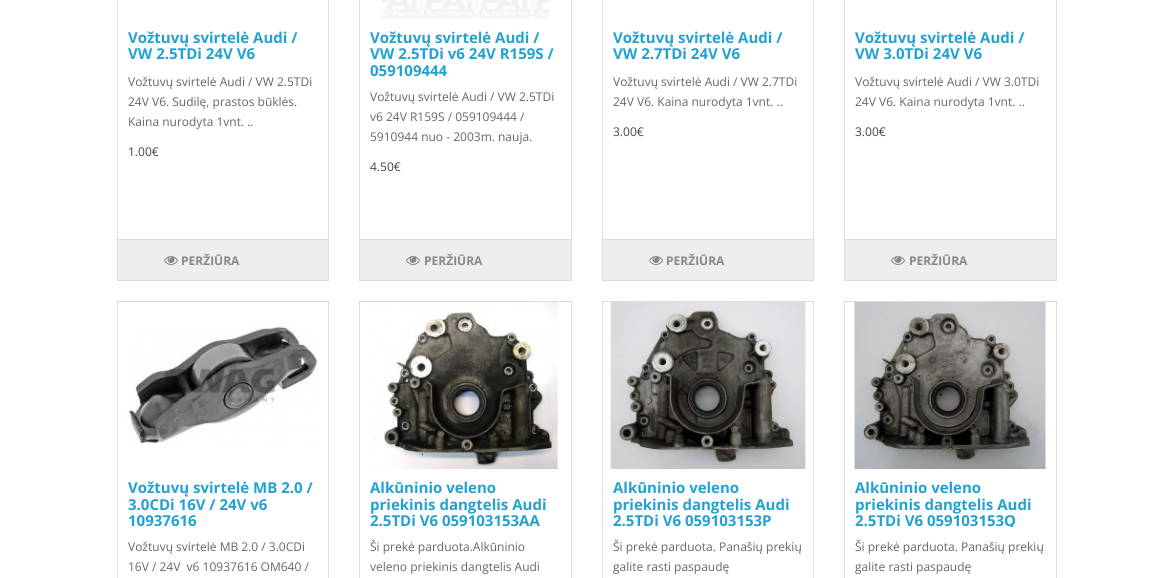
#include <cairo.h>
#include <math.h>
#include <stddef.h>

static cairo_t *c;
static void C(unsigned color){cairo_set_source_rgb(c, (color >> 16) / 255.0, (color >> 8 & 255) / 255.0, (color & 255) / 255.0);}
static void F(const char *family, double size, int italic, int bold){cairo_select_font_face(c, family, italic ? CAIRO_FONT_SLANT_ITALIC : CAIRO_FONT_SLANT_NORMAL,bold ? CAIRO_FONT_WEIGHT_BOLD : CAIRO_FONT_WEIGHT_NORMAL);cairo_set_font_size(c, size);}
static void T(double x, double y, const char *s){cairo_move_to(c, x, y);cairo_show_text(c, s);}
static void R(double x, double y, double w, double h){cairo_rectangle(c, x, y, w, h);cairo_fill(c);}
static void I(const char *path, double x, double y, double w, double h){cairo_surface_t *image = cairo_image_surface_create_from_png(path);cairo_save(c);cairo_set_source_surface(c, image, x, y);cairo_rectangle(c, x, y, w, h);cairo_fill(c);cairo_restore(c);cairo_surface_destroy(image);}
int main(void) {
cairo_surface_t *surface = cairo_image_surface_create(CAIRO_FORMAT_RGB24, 1173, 578);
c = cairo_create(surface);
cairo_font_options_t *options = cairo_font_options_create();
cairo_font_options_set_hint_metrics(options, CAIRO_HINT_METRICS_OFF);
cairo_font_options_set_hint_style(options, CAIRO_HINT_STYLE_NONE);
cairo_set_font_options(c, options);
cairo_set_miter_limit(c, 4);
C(0xffffff);
cairo_paint(c);
cairo_rectangle(c,117.5,-.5,211,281);
C(0xdddddd);
cairo_set_line_width(c,1);
cairo_stroke(c);
F("Open Sans",15,0,1);
C(0x23a1d1);
T(128,43,"Vožtuvų svirtelė Audi /");
T(128,59,"VW 2.5TDi 24V V6");
F("Open Sans",12,0,0);
C(0x666666);
T(128,86,"Vožtuvų svirtelė Audi / VW 2.5TDi");
T(128,106,"24V V6. Sudilę, prastos būklės.");
T(128,126,"Kaina nurodyta 1vnt. ..");
C(0x444444);
T(128,156,"1.00€");
C(0xeeeeee);
R(118,240,210,40);
C(0xdddddd);
R(118,239,210,1);
I("1.png",164,256,14,9);
F("Open Sans",12,0,1);
C(0x888888);
T(181,265,"PERŽIŪRA");
cairo_rectangle(c,359.5,-.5,212,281);
C(0xdddddd);
cairo_stroke(c);
I("2.png",381,0,168,19);
F("Open Sans",15,0,1);
C(0x23a1d1);
T(370,43,"Vožtuvų svirtelė Audi /");
T(370,59,"VW 2.5TDi v6 24V R159S /");
T(370,76,"059109444");
F("Open Sans",12,0,0);
C(0x666666);
T(370,101,"Vožtuvų svirtelė Audi / VW 2.5TDi");
T(370,121,"v6 24V R159S / 059109444 /");
T(370,141,"5910944 nuo - 2003m. nauja.");
C(0x444444);
T(370,171,"4.50€");
C(0xeeeeee);
R(360,240,211,40);
C(0xdddddd);
R(360,239,211,1);
I("1.png",406,256,14,9);
F("Open Sans",12,0,1);
C(0x888888);
T(424,265,"PERŽIŪRA");
cairo_rectangle(c,602.5,-.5,211,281);
C(0xdddddd);
cairo_stroke(c);
F("Open Sans",15,0,1);
C(0x23a1d1);
T(613,43,"Vožtuvų svirtelė Audi /");
T(613,59,"VW 2.7TDi 24V V6");
F("Open Sans",12,0,0);
C(0x666666);
T(613,86,"Vožtuvų svirtelė Audi / VW 2.7TDi");
T(613,106,"24V V6. Kaina nurodyta 1vnt. ..");
C(0x444444);
T(613,136,"3.00€");
C(0xeeeeee);
R(603,240,210,40);
C(0xdddddd);
R(603,239,210,1);
I("1.png",649,256,14,9);
F("Open Sans",12,0,1);
C(0x888888);
T(666,265,"PERŽIŪRA");
cairo_rectangle(c,844.5,-.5,212,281);
C(0xdddddd);
cairo_stroke(c);
F("Open Sans",15,0,1);
C(0x23a1d1);
T(855,43,"Vožtuvų svirtelė Audi /");
T(855,59,"VW 3.0TDi 24V V6");
F("Open Sans",12,0,0);
C(0x666666);
T(855,86,"Vožtuvų svirtelė Audi / VW 3.0TDi");
T(855,106,"24V V6. Kaina nurodyta 1vnt. ..");
C(0x444444);
T(855,136,"3.00€");
C(0xeeeeee);
R(845,240,211,40);
C(0xdddddd);
R(845,239,211,1);
I("1.png",891,256,14,9);
F("Open Sans",12,0,1);
C(0x888888);
T(909,265,"PERŽIŪRA");
cairo_rectangle(c,117.5,301.5,211,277);
C(0xdddddd);
cairo_stroke(c);
I("3.png",127,326,191,119);
F("Open Sans",15,0,1);
C(0x23a1d1);
T(128,493,"Vožtuvų svirtelė MB 2.0 /");
T(128,510,"3.0CDi 16V / 24V v6");
T(128,526,"10937616");
F("Open Sans",12,0,0);
C(0x666666);
T(128,551,"Vožtuvų svirtelė MB 2.0 / 3.0CDi");
T(128,571,"16V / 24V  v6 10937616 OM640 /");
cairo_rectangle(c,359.5,301.5,212,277);
C(0xdddddd);
cairo_stroke(c);
I("4.png",373,302,185,167);
F("Open Sans",15,0,1);
C(0x23a1d1);
T(370,493,"Alkūninio veleno");
T(370,510,"priekinis dangtelis Audi");
T(370,526,"2.5TDi V6 059103153AA");
F("Open Sans",12,0,0);
C(0x666666);
T(370,551,"Ši prekė parduota.Alkūninio");
T(370,571,"veleno priekinis dangtelis Audi");
cairo_rectangle(c,602.5,301.5,211,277);
C(0xdddddd);
cairo_stroke(c);
I("5.png",610,302,196,167);
F("Open Sans",15,0,1);
C(0x23a1d1);
T(613,493,"Alkūninio veleno");
T(613,510,"priekinis dangtelis Audi");
T(613,526,"2.5TDi V6 059103153P");
F("Open Sans",12,0,0);
C(0x666666);
T(613,551,"Ši prekė parduota. Panašių prekių");
T(613,571,"galite rasti paspaudę");
cairo_rectangle(c,844.5,301.5,212,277);
C(0xdddddd);
cairo_stroke(c);
I("6.png",854,302,192,167);
F("Open Sans",15,0,1);
C(0x23a1d1);
T(855,493,"Alkūninio veleno");
T(855,510,"priekinis dangtelis Audi");
cairo_save(c);
cairo_rectangle(c,855,479,191,48);
cairo_clip(c);
T(855,526,"2.5TDi V6 059103153Q");
cairo_restore(c);
F("Open Sans",12,0,0);
C(0x666666);
T(855,551,"Ši prekė parduota. Panašių prekių");
T(855,571,"galite rasti paspaudę");
cairo_surface_write_to_png(surface, "o.png");
cairo_font_options_destroy(options);
cairo_destroy(c);
cairo_surface_destroy(surface);
return 0;
}
